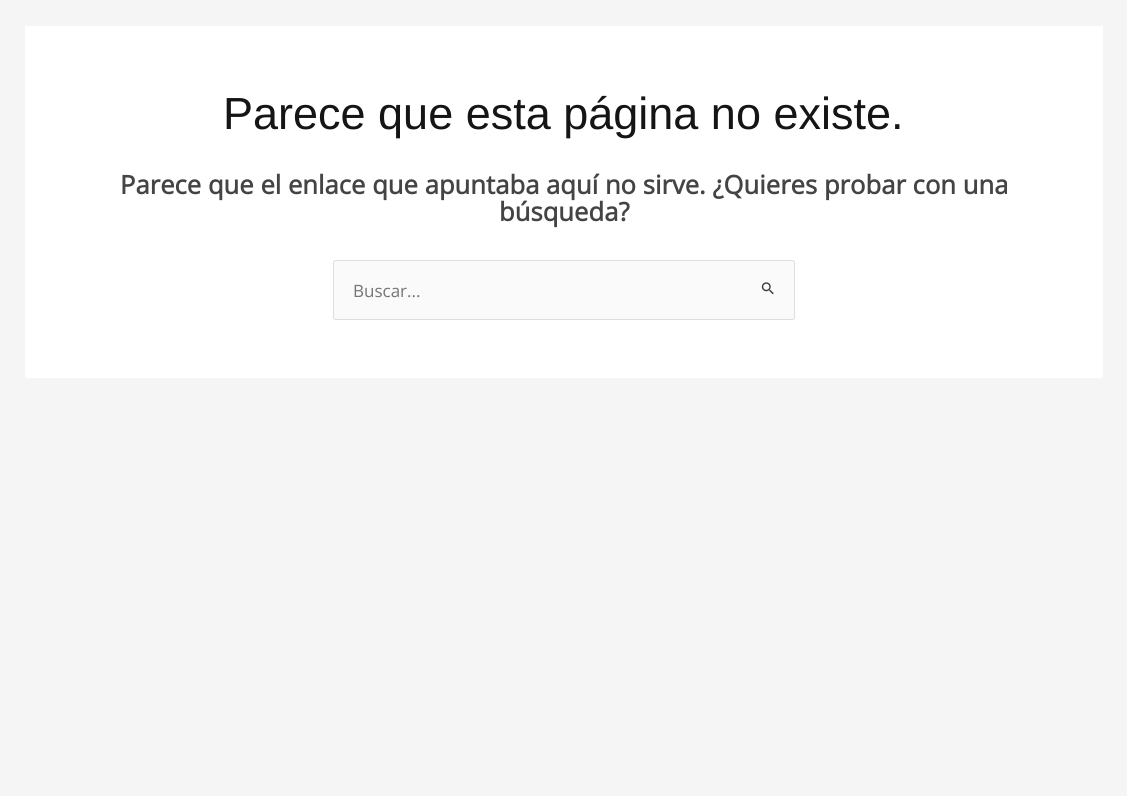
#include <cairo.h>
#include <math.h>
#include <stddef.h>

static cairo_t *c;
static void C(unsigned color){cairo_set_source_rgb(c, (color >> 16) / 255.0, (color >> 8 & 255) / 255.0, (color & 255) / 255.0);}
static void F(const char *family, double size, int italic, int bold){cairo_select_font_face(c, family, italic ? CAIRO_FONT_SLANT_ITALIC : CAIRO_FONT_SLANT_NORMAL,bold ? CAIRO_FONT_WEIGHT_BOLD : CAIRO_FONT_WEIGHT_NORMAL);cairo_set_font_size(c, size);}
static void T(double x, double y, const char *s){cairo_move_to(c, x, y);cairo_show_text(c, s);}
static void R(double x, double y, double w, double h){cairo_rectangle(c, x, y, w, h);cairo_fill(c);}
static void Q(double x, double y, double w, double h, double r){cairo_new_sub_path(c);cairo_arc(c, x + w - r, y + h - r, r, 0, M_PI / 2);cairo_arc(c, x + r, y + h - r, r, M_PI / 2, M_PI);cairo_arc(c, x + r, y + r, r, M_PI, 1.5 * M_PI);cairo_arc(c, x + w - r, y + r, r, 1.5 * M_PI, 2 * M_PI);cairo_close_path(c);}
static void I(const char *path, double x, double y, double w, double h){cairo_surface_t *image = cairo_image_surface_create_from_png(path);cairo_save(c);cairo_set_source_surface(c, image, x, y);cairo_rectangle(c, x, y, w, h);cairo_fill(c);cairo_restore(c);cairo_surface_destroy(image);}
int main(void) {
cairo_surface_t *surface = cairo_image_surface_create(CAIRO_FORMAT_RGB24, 1127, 796);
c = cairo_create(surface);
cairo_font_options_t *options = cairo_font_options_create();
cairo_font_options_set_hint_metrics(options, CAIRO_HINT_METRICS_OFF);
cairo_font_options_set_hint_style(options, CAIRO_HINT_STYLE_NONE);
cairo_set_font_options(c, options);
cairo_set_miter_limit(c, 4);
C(0xf5f5f5);
cairo_paint(c);
C(0xffffff);
R(25,26,1078,352);
F("Liberation Sans",45,0,0);
C(0x151515);
T(223,129,"Parece que esta página no existe.");
F("Open Sans",25.65,0,1);
C(0x444444);
T(120,194,"Parece que el enlace que apuntaba aquí no sirve. ¿Quieres probar con una");
T(499,221,"búsqueda?");
C(0xfafafa);
Q(333.5,260.5,461,59,2);
cairo_fill_preserve(c);
C(0xdddddd);
cairo_set_line_width(c,1);
cairo_stroke(c);
F("Open Sans",17,0,0);
C(0x757575);
T(353,297,"Buscar...");
I("1.png",761,282,13,13);
cairo_surface_write_to_png(surface, "o.png");
cairo_font_options_destroy(options);
cairo_destroy(c);
cairo_surface_destroy(surface);
return 0;
}
